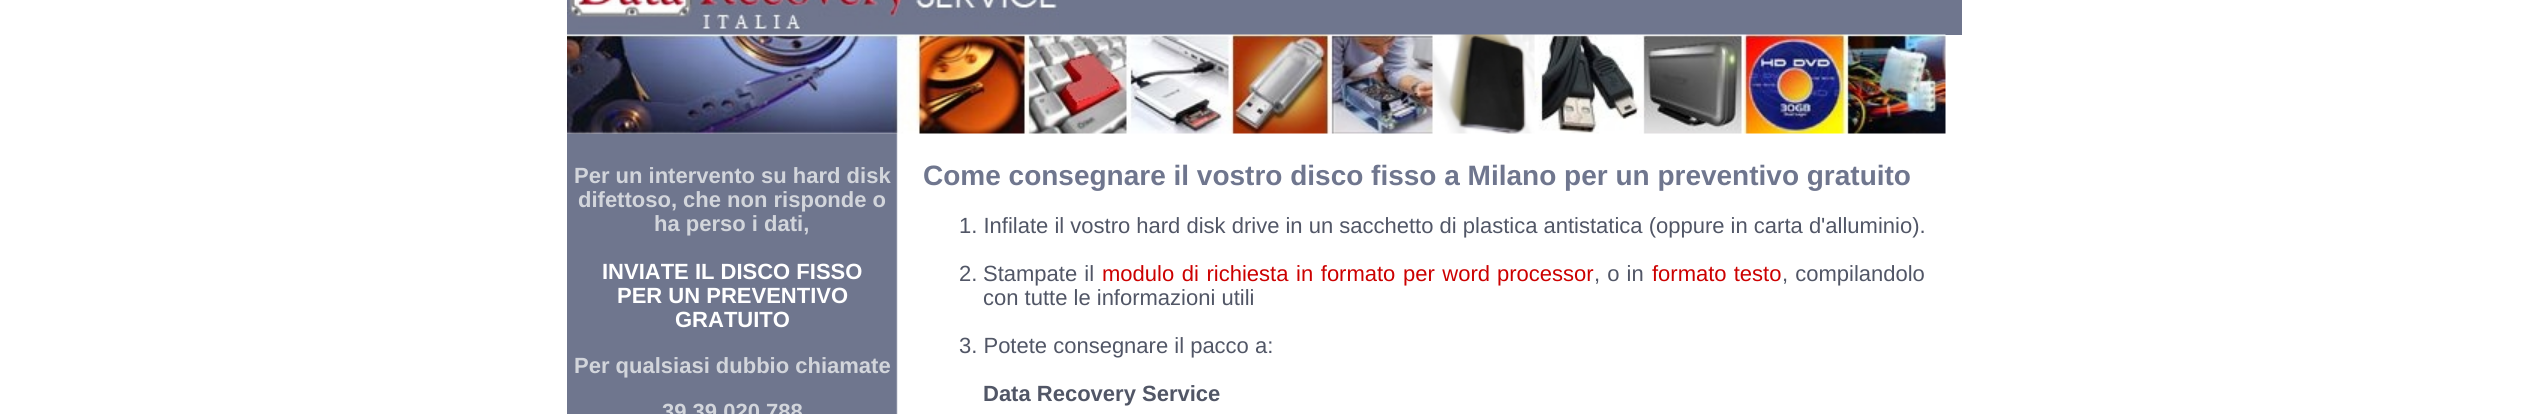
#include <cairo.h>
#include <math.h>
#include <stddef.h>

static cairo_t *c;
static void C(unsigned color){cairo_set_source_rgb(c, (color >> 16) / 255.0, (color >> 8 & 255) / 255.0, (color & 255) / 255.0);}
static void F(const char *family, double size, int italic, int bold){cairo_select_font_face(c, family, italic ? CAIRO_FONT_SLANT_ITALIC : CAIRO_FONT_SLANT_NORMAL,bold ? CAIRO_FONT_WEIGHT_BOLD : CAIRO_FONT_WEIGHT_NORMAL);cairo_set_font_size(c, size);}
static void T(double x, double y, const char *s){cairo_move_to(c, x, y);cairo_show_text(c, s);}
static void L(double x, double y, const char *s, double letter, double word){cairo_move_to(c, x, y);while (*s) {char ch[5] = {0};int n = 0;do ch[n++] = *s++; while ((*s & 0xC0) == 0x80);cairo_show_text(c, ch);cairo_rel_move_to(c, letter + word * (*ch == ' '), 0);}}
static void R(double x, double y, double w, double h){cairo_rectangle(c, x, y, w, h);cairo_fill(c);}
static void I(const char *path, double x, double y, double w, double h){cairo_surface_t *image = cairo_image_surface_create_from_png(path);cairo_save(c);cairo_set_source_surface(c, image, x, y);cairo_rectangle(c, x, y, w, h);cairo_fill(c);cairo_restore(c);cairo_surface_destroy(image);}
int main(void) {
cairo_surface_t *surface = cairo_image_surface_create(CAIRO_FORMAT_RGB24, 2527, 414);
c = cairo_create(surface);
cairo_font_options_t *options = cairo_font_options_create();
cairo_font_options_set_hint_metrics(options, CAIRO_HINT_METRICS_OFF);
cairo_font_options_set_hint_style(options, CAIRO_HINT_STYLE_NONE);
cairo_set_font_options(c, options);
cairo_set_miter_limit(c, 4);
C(0xffffff);
cairo_paint(c);
C(0x6f768e);
R(567,0,1395,35);
I("1.png",567,0,492,31);
I("3.png",567,133,331,281);
I("2.png",567,34,1379,100);
F("Liberation Sans",22,0,1);
C(0xd2d5db);
T(574,183,"Per un intervento su hard disk");
T(578,207,"difettoso, che non risponde o");
T(654,231,"ha perso i dati,");
C(0xffffff);
T(602,279,"INVIATE IL DISCO FISSO");
T(617,303,"PER UN PREVENTIVO");
T(675,327,"GRATUITO");
C(0xd2d5db);
T(574,373,"Per qualsiasi dubbio chiamate");
T(662,419,"39 39 020 788");
F("Liberation Sans",28,0,1);
C(0x6f768e);
T(923,185,"Come consegnare il vostro disco fisso a Milano per un preventivo gratuito");
F("Liberation Sans",22,0,0);
C(0x515666);
T(959,233,"1. Infilate il vostro hard disk drive in un sacchetto di plastica antistatica (oppure in carta d'alluminio).");
T(959,281,"2.");
L(983,281,"Stampate il",0,1);
C(0xcc0000);
L(1102,281,"modulo di richiesta in formato per word",0,1.5);
T(1497,281,"processor");
C(0x515666);
L(1594,281,", o in",0,1);
C(0xcc0000);
L(1652,281,"formato testo",0,1);
C(0x515666);
L(1782,281,", compilandolo",0,1);
T(983,305,"con tutte le informazioni utili");
T(959,353,"3. Potete consegnare il pacco a:");
F("Liberation Sans",22,0,1);
T(983,401,"Data Recovery Service");
cairo_surface_write_to_png(surface, "o.png");
cairo_font_options_destroy(options);
cairo_destroy(c);
cairo_surface_destroy(surface);
return 0;
}
